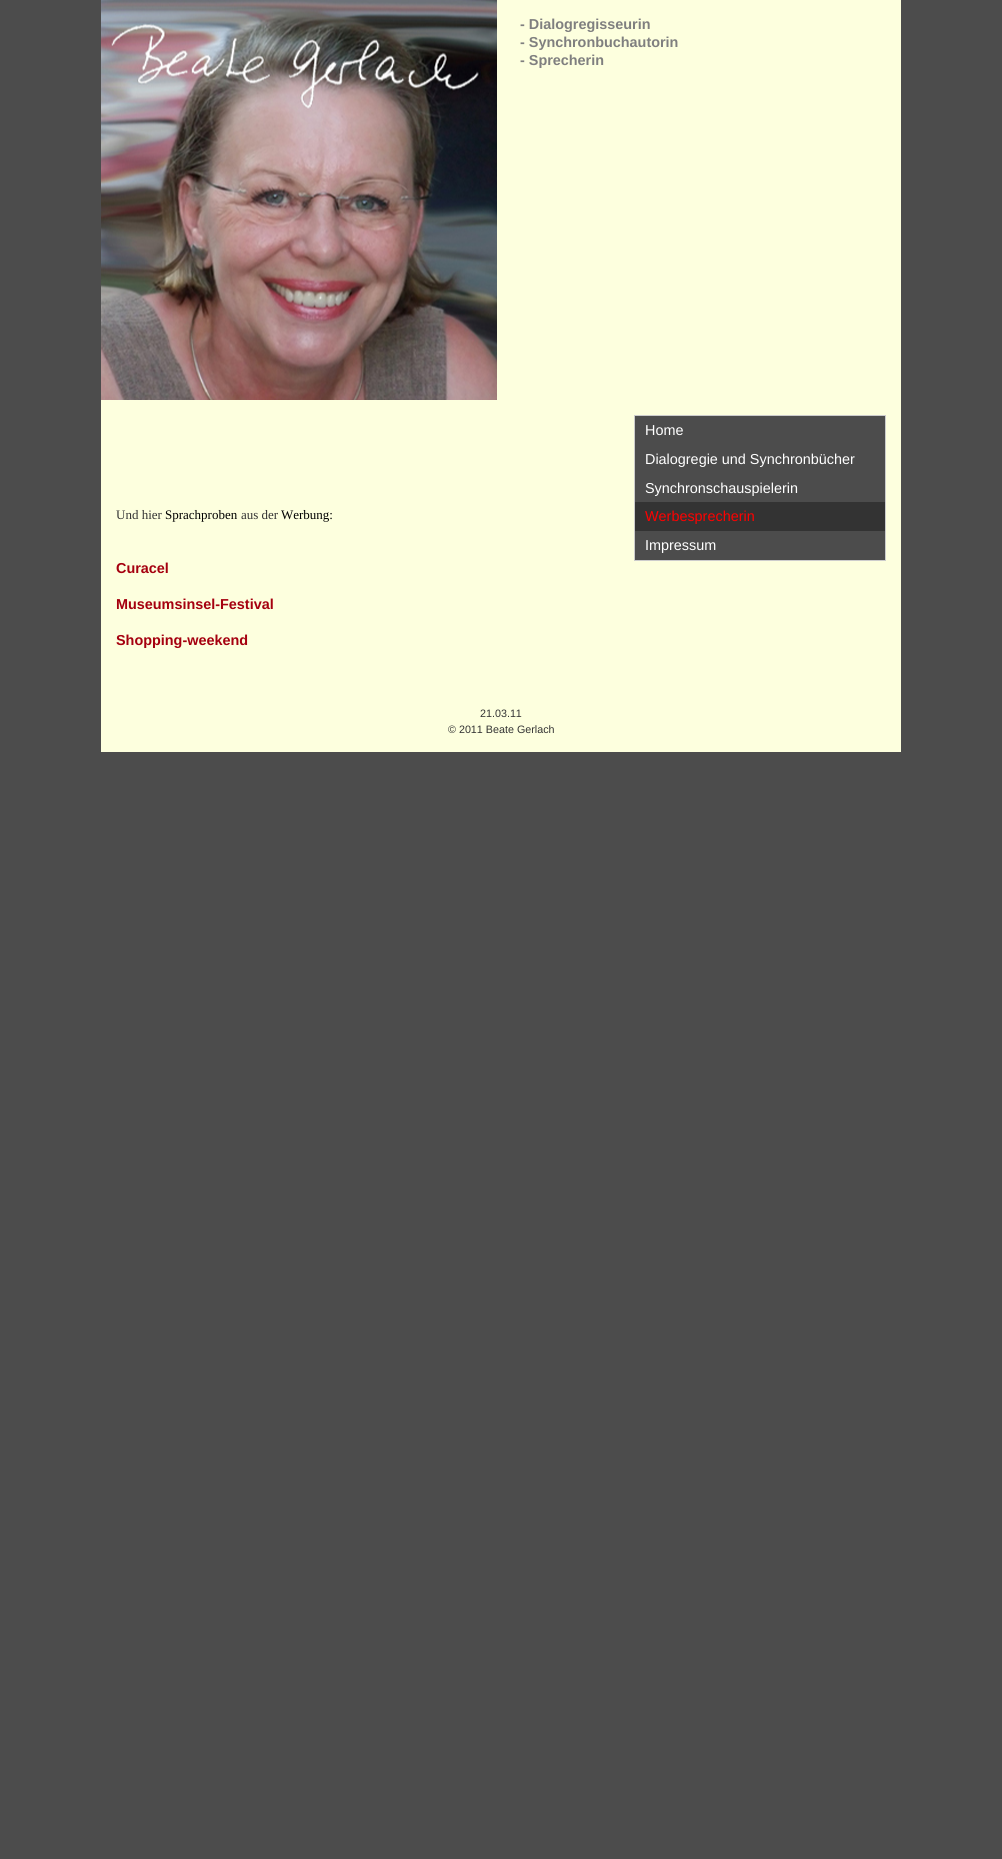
#include <cairo.h>
#include <math.h>
#include <stddef.h>

static cairo_t *c;
static void C(unsigned color){cairo_set_source_rgb(c, (color >> 16) / 255.0, (color >> 8 & 255) / 255.0, (color & 255) / 255.0);}
static void F(const char *family, double size, int italic, int bold){cairo_select_font_face(c, family, italic ? CAIRO_FONT_SLANT_ITALIC : CAIRO_FONT_SLANT_NORMAL,bold ? CAIRO_FONT_WEIGHT_BOLD : CAIRO_FONT_WEIGHT_NORMAL);cairo_set_font_size(c, size);}
static void T(double x, double y, const char *s){cairo_move_to(c, x, y);cairo_show_text(c, s);}
static void R(double x, double y, double w, double h){cairo_rectangle(c, x, y, w, h);cairo_fill(c);}
static void I(const char *path, double x, double y, double w, double h){cairo_surface_t *image = cairo_image_surface_create_from_png(path);cairo_save(c);cairo_set_source_surface(c, image, x, y);cairo_rectangle(c, x, y, w, h);cairo_fill(c);cairo_restore(c);cairo_surface_destroy(image);}
int main(void) {
cairo_surface_t *surface = cairo_image_surface_create(CAIRO_FORMAT_RGB24, 1002, 1859);
c = cairo_create(surface);
cairo_font_options_t *options = cairo_font_options_create();
cairo_font_options_set_hint_metrics(options, CAIRO_HINT_METRICS_OFF);
cairo_font_options_set_hint_style(options, CAIRO_HINT_STYLE_NONE);
cairo_set_font_options(c, options);
cairo_set_miter_limit(c, 4);
C(0x4c4c4c);
cairo_paint(c);
C(0xfdffde);
R(101,0,800,752);
I("1.png",101,0,396,400);
F("Liberation Sans",14.4,0,1);
C(0x7f7f7f);
T(520,29,"- Dialogregisseurin");
T(520,47,"- Synchronbuchautorin");
T(520,65,"- Sprecherin");
F("Liberation Serif",13,0,0);
C(0x333333);
T(116,519,"Und hier");
C(0x000000);
T(165,519,"Sprachproben");
C(0x333333);
T(241,519,"aus der");
C(0x000000);
T(281,519,"Werbung:");
cairo_rectangle(c,634.5,415.5,251,145);
C(0xcccccc);
cairo_set_line_width(c,1);
cairo_stroke(c);
C(0x4c4c4c);
R(635,416,250,86);
F("Liberation Sans",14.4,0,0);
C(0xffffff);
T(645,435,"Home");
T(645,464,"Dialogregie und Synchronbücher");
T(645,493,"Synchronschauspielerin");
C(0x333333);
R(635,502,250,29);
C(0xff0000);
T(645,521,"Werbesprecherin");
C(0x4c4c4c);
R(635,531,250,29);
C(0xffffff);
T(645,550,"Impressum");
F("Liberation Sans",14.4,0,1);
C(0xa5000f);
T(116,573,"Curacel");
T(116,609,"Museumsinsel-Festival");
T(116,645,"Shopping-weekend");
F("Liberation Sans",10.75,0,0);
C(0x333333);
T(480,717,"21.03.11");
T(448,733,"© 2011 Beate Gerlach");
cairo_surface_write_to_png(surface, "o.png");
cairo_font_options_destroy(options);
cairo_destroy(c);
cairo_surface_destroy(surface);
return 0;
}
